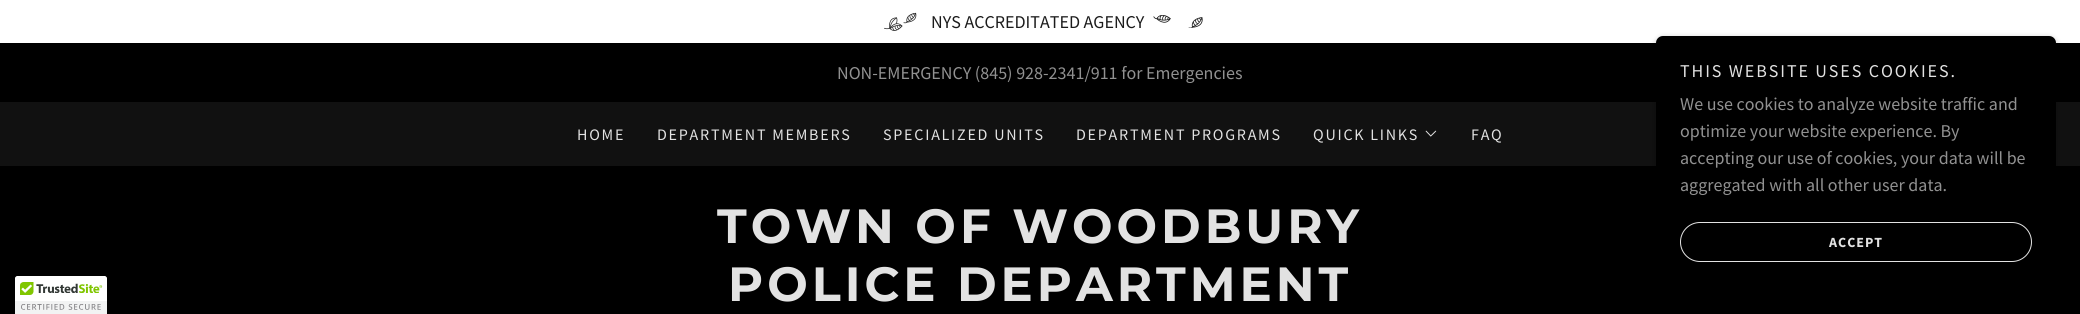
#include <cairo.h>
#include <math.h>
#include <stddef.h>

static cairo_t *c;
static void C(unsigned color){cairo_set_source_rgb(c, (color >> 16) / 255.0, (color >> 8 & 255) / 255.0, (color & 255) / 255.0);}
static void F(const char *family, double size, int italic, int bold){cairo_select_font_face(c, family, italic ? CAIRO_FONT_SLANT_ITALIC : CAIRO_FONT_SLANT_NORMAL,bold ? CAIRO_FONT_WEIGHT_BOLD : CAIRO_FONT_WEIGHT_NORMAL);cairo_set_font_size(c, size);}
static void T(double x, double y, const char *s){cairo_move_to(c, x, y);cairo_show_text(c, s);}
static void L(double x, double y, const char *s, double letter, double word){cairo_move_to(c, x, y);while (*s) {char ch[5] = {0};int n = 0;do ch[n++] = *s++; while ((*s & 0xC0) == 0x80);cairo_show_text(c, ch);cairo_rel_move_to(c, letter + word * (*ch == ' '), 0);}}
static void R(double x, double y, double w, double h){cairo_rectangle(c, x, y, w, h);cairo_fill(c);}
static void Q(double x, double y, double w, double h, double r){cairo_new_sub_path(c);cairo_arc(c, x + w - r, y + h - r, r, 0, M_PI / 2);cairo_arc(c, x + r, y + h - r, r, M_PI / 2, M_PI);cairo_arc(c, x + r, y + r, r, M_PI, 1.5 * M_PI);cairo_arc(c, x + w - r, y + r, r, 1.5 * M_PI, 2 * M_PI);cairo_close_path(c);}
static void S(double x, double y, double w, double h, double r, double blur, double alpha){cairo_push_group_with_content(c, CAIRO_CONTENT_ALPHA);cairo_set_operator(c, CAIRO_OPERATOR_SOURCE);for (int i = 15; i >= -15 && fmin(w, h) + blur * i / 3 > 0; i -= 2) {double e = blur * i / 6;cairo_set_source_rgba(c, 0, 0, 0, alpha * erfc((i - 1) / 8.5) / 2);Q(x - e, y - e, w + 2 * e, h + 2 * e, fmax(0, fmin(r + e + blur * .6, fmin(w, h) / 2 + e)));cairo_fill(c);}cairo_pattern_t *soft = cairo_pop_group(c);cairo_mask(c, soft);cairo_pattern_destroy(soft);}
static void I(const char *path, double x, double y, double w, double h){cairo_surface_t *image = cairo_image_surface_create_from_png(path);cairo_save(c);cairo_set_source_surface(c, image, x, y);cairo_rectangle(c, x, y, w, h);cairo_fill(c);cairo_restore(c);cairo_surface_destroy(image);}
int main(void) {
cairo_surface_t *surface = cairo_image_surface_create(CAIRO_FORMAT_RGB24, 2080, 314);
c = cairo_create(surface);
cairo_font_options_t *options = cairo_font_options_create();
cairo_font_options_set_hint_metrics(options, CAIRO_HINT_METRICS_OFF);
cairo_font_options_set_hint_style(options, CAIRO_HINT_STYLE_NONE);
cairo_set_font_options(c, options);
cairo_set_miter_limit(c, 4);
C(0x000000);
cairo_paint(c);
I("1.png",15,276,92,38);
C(0xffffff);
R(0,0,2080,43);
I("2.png",884,12,33,19);
F("Source Sans Pro",18,0,0);
C(0x1b1b1b);
T(931,28,"NYS ACCREDITATED AGENCY");
I("3.png",1153,15,50,13);
C(0x919191);
T(837,79,"NON-EMERGENCY (845) 928-2341/911 for Emergencies");
C(0x111111);
R(0,102,2080,64);
F("Source Sans Pro",16,0,0);
C(0xe2e2e2);
L(577,140,"HOME",1.75,0);
L(657,140,"DEPARTMENT MEMBERS",1.75,0);
L(883,140,"SPECIALIZED UNITS",1.75,0);
L(1076,140,"DEPARTMENT PROGRAMS",1.75,0);
L(1313,140,"QUICK LINKS",1.75,0);
I("4.png",1425,130,12,7);
L(1471,140,"FAQ",1.75,0);
F("Montserrat",48,0,1);
L(717,243,"TOWN OF WOODBURY",4,0);
L(728,301,"POLICE DEPARTMENT",4,0);
C(0x000000);
S(1656,38,400,254,7,3,.3);
C(0x000000);
Q(1656,36,400,254,7);
cairo_fill(c);
F("Source Sans Pro",18,0,0);
C(0xe2e2e2);
L(1680,77,"THIS WEBSITE USES COOKIES.",1.9,0);
C(0x919191);
T(1680,110,"We use cookies to analyze website traffic and");
T(1680,137,"optimize your website experience. By");
T(1680,164,"accepting our use of cookies, your data will be");
T(1680,191,"aggregated with all other user data.");
Q(1680.5,222.5,351,39,19.5);
C(0xe2e2e2);
cairo_set_line_width(c,1);
cairo_stroke(c);
F("Source Sans Pro",14,0,1);
L(1829,247,"ACCEPT",1,0);
cairo_surface_write_to_png(surface, "o.png");
cairo_font_options_destroy(options);
cairo_destroy(c);
cairo_surface_destroy(surface);
return 0;
}
